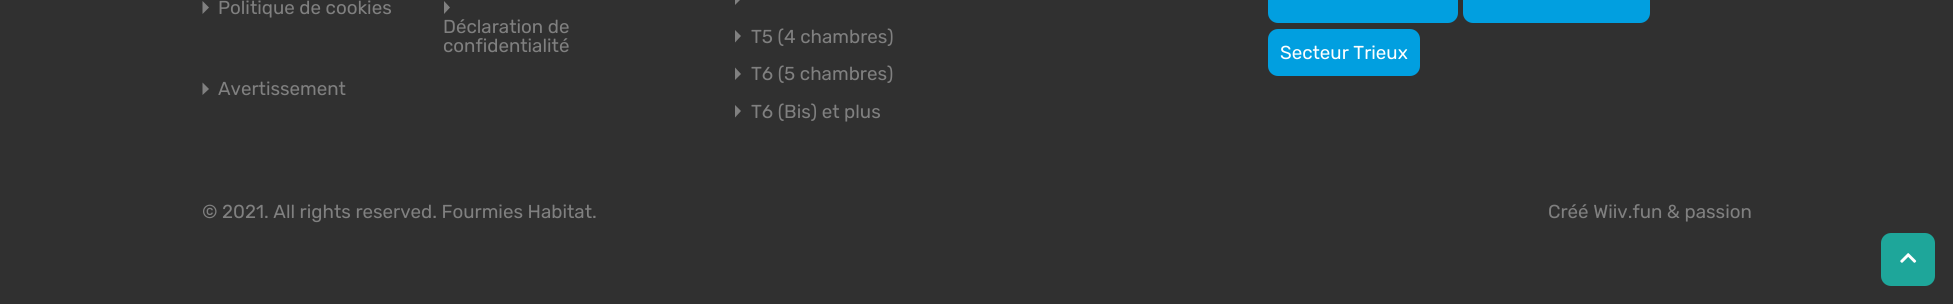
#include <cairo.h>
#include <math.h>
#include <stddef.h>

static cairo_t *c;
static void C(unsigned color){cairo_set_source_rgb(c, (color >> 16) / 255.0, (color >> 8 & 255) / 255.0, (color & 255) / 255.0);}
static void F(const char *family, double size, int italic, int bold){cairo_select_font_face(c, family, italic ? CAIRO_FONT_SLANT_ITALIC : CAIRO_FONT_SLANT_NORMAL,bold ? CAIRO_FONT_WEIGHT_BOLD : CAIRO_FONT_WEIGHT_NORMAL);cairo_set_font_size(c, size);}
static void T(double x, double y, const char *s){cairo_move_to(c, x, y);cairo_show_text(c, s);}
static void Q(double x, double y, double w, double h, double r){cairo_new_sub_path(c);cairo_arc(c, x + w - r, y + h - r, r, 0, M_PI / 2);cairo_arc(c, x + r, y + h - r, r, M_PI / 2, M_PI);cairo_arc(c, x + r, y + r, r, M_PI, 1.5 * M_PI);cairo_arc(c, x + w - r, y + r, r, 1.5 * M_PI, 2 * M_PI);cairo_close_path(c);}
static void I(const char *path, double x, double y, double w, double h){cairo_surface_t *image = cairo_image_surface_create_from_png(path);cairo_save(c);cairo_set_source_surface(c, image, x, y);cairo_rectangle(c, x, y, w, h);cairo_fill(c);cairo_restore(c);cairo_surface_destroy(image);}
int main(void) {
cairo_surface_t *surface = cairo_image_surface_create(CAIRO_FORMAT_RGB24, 1953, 304);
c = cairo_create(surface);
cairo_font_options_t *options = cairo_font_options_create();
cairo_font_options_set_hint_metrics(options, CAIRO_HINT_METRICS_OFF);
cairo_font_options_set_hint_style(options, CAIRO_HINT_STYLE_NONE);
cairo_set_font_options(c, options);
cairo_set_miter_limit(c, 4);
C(0x303030);
cairo_paint(c);
C(0x808080);
cairo_new_path(c);
cairo_move_to(c,202.5,14);
cairo_line_to(c,202.5,1);
cairo_line_to(c,209,7.5);
cairo_close_path(c);
cairo_fill(c);
F("Rubik",18.75,0,0);
T(218,14,"Politique de cookies");
cairo_new_path(c);
cairo_move_to(c,444,14);
cairo_line_to(c,444,1);
cairo_line_to(c,450,7.5);
cairo_close_path(c);
cairo_fill(c);
T(443,33,"Déclaration de");
T(443,52,"confidentialité");
cairo_new_path(c);
cairo_move_to(c,202.5,95);
cairo_line_to(c,202.5,82.5);
cairo_line_to(c,209,89);
cairo_close_path(c);
cairo_fill(c);
T(218,95,"Avertissement");
cairo_new_path(c);
cairo_move_to(c,735,5);
cairo_line_to(c,735,-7.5);
cairo_line_to(c,741,-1);
cairo_close_path(c);
cairo_move_to(c,735,42.5);
cairo_line_to(c,735,30);
cairo_line_to(c,741,36);
cairo_close_path(c);
cairo_fill(c);
T(751,43,"T5 (4 chambres)");
cairo_new_path(c);
cairo_move_to(c,735,80);
cairo_line_to(c,735,67.5);
cairo_line_to(c,741,74);
cairo_close_path(c);
cairo_fill(c);
T(751,80,"T6 (5 chambres)");
cairo_new_path(c);
cairo_move_to(c,735,117.5);
cairo_line_to(c,735,105);
cairo_line_to(c,741,111);
cairo_close_path(c);
cairo_fill(c);
T(751,118,"T6 (Bis) et plus");
C(0x019fe0);
Q(1268,-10,190,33,10);
cairo_fill(c);
Q(1463,-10,187,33,10);
cairo_fill(c);
Q(1268,29,152,47,10);
cairo_fill(c);
C(0xffffff);
T(1280,59,"Secteur Trieux");
C(0x808080);
T(202,218,"© 2021. All rights reserved. Fourmies Habitat.");
T(1548,218,"Créé Wiiv.fun & passion");
C(0x1ea69a);
Q(1881,233,54,53,10);
cairo_fill(c);
I("1.png",1900,253,17,10);
cairo_surface_write_to_png(surface, "o.png");
cairo_font_options_destroy(options);
cairo_destroy(c);
cairo_surface_destroy(surface);
return 0;
}
